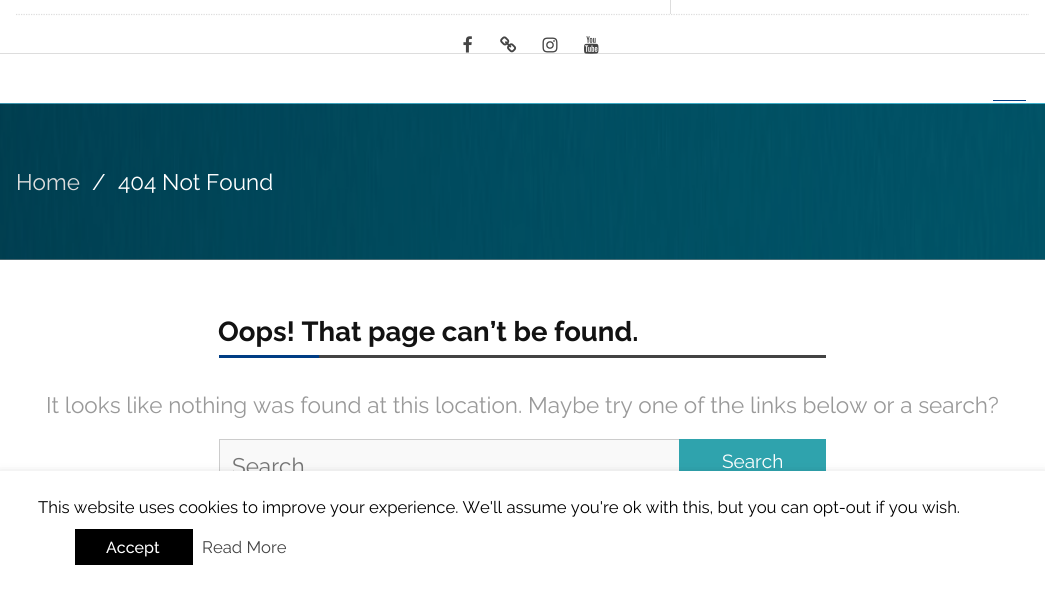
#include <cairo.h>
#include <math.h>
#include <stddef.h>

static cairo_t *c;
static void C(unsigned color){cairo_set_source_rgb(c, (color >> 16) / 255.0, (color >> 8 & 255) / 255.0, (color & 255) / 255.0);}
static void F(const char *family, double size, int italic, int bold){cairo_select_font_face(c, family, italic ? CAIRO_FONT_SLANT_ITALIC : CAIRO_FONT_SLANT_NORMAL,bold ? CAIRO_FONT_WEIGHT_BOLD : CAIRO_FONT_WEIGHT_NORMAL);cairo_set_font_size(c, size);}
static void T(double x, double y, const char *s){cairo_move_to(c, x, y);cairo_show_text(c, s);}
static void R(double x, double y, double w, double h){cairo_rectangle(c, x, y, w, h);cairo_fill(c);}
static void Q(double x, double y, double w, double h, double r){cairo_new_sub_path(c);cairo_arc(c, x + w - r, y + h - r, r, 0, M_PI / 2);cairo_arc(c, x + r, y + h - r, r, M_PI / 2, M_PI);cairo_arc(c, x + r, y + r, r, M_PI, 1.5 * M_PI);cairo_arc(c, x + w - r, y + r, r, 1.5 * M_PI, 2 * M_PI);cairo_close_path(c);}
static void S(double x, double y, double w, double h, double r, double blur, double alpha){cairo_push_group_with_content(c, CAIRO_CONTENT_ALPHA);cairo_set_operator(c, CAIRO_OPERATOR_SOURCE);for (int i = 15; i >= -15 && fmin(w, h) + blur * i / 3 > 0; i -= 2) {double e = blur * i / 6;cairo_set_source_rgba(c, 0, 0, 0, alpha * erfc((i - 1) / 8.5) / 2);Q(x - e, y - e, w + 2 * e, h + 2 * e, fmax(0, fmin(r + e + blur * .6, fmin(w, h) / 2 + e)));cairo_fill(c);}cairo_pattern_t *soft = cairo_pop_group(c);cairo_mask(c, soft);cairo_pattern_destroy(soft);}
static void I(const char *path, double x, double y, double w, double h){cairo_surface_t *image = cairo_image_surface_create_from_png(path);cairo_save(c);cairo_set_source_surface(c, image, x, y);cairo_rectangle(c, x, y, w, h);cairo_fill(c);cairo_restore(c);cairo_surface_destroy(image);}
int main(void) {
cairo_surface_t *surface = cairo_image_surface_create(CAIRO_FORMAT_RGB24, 1045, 589);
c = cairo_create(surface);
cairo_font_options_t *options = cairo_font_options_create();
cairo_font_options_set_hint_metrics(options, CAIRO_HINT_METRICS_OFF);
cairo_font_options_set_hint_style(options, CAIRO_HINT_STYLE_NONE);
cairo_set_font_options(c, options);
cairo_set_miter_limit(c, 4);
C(0xffffff);
cairo_paint(c);
C(0x8c8c8c);
R(0,259,1045,1);
C(0xdddddd);
R(0,53,1045,1);
R(670,0,1,14);
cairo_new_path(c);
cairo_move_to(c,16,14.5);
cairo_line_to(c,1029,14.5);
cairo_set_line_width(c,1.2);
cairo_set_dash(c,(double[]){1.25,1.25},2,0);
cairo_stroke(c);
I("1.png",463,36,9,17);
I("2.png",500,36,17,17);
I("3.png",542,37,16,16);
I("4.png",584,36,15,18);
C(0x003d84);
R(993,100,33,1);
I("5.png",0,103,1045,157);
F("Raleway",22.5,0,0);
C(0xdddddd);
T(16,190,"Home");
C(0xffffff);
T(92,190,"/");
T(118,190,"404 Not Found");
F("Raleway",27.5,0,1);
C(0x121212);
T(218,341,"Oops! That page can’t be found.");
C(0x434343);
R(319,355,507,3);
C(0x003d84);
R(219,355,100,3);
F("Raleway",22.5,0,0);
C(0x999999);
T(46,413,"It looks like nothing was found at this location. Maybe try one of the links below or a search?");
C(0xf9f9f9);
R(220,440,459,31);
cairo_rectangle(c,219.5,439.5,606,53);
C(0xcccccc);
cairo_set_line_width(c,1);
cairo_set_dash(c,NULL,0,0);
cairo_stroke(c);
C(0x757575);
T(232,474,"Search");
C(0x2fa3ad);
R(679,439,147,32);
F("Raleway",19,0,0);
C(0xffffff);
T(722,468,"Search");
C(0x000000);
S(0,478,1045,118,0,6,.5);
C(0xffffff);
R(0,471,1045,118);
F("Raleway",16.67,0,0);
C(0x000000);
T(38,513,"This website uses cookies to improve your experience. We'll assume you're ok with this, but you can opt-out if you wish.");
R(75,529,118,36);
F("Raleway Medium",16,0,0);
C(0xffffff);
T(106,553,"Accept");
F("Raleway",16.67,0,0);
C(0x444444);
T(202,553,"Read More");
cairo_surface_write_to_png(surface, "o.png");
cairo_font_options_destroy(options);
cairo_destroy(c);
cairo_surface_destroy(surface);
return 0;
}
